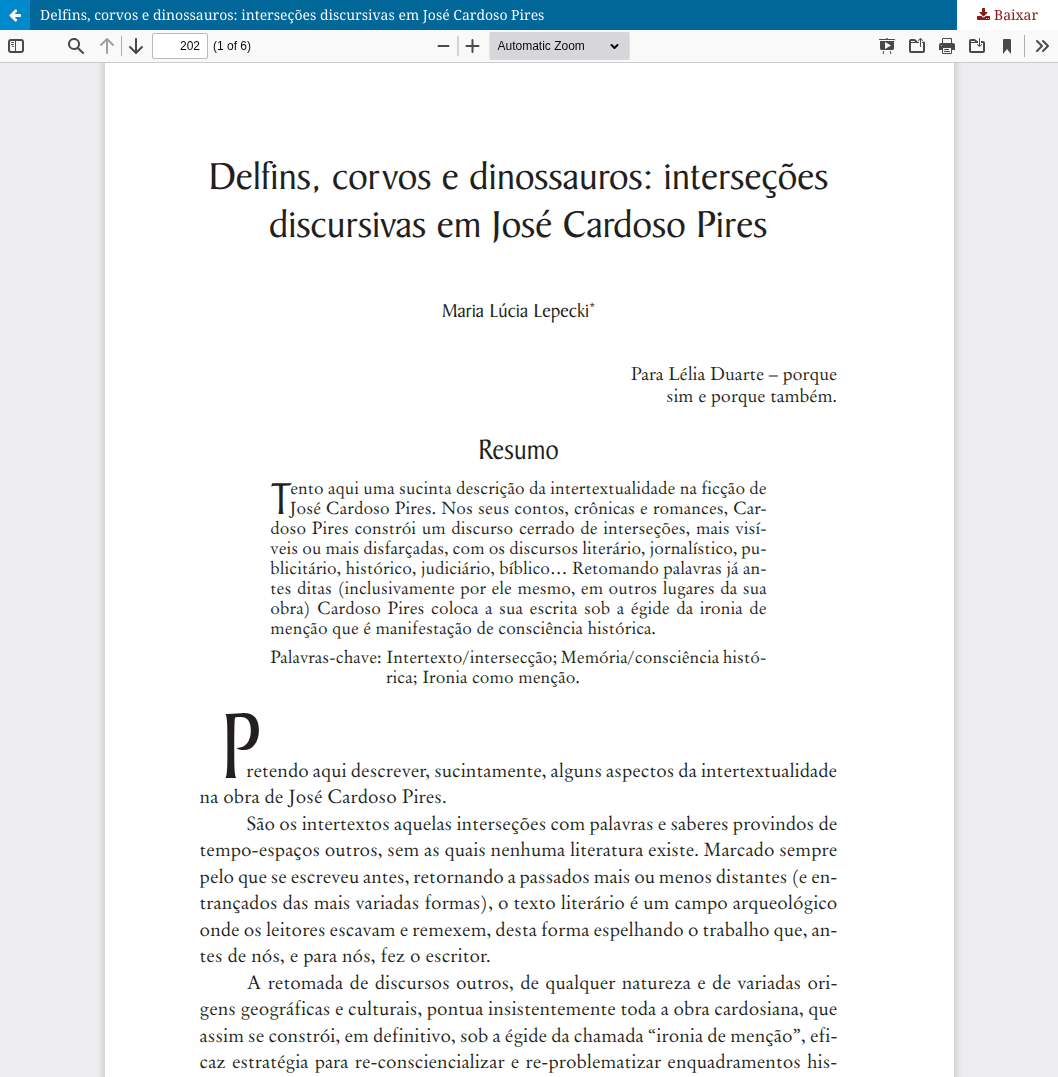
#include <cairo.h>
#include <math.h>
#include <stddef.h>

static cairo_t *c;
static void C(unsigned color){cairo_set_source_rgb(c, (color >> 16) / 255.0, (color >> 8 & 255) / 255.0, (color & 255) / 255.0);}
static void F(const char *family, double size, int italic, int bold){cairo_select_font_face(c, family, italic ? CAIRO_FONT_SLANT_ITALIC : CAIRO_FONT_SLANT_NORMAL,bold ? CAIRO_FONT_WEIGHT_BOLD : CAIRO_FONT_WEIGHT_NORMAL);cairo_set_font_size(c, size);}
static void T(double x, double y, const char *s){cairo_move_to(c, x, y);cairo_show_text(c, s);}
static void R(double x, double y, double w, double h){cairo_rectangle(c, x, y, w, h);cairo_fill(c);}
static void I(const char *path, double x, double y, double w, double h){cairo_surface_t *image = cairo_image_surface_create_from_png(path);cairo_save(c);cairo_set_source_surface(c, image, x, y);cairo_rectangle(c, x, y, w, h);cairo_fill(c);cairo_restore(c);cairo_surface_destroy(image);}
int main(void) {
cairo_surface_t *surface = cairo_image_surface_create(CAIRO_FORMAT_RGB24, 1058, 1077);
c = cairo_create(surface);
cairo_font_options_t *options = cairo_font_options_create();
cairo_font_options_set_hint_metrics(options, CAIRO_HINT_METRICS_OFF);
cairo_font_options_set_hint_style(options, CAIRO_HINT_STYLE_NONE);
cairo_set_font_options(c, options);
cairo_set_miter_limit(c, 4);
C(0xffffff);
cairo_paint(c);
C(0x006798);
R(30,0,927,30);
C(0x008acb);
R(0,0,30,30);
I("1.png",9,9,12,13);
F("Noto Serif",14,0,0);
C(0xffffff);
T(40,20,"Delfins, corvos e dinossauros: interseções discursivas em José Cardoso Pires");
I("2.png",977,8,13,12);
C(0x8b1a1a);
T(994,20,"Baixar");
I("3.png",0,30,1058,1047);
cairo_surface_write_to_png(surface, "o.png");
cairo_font_options_destroy(options);
cairo_destroy(c);
cairo_surface_destroy(surface);
return 0;
}
